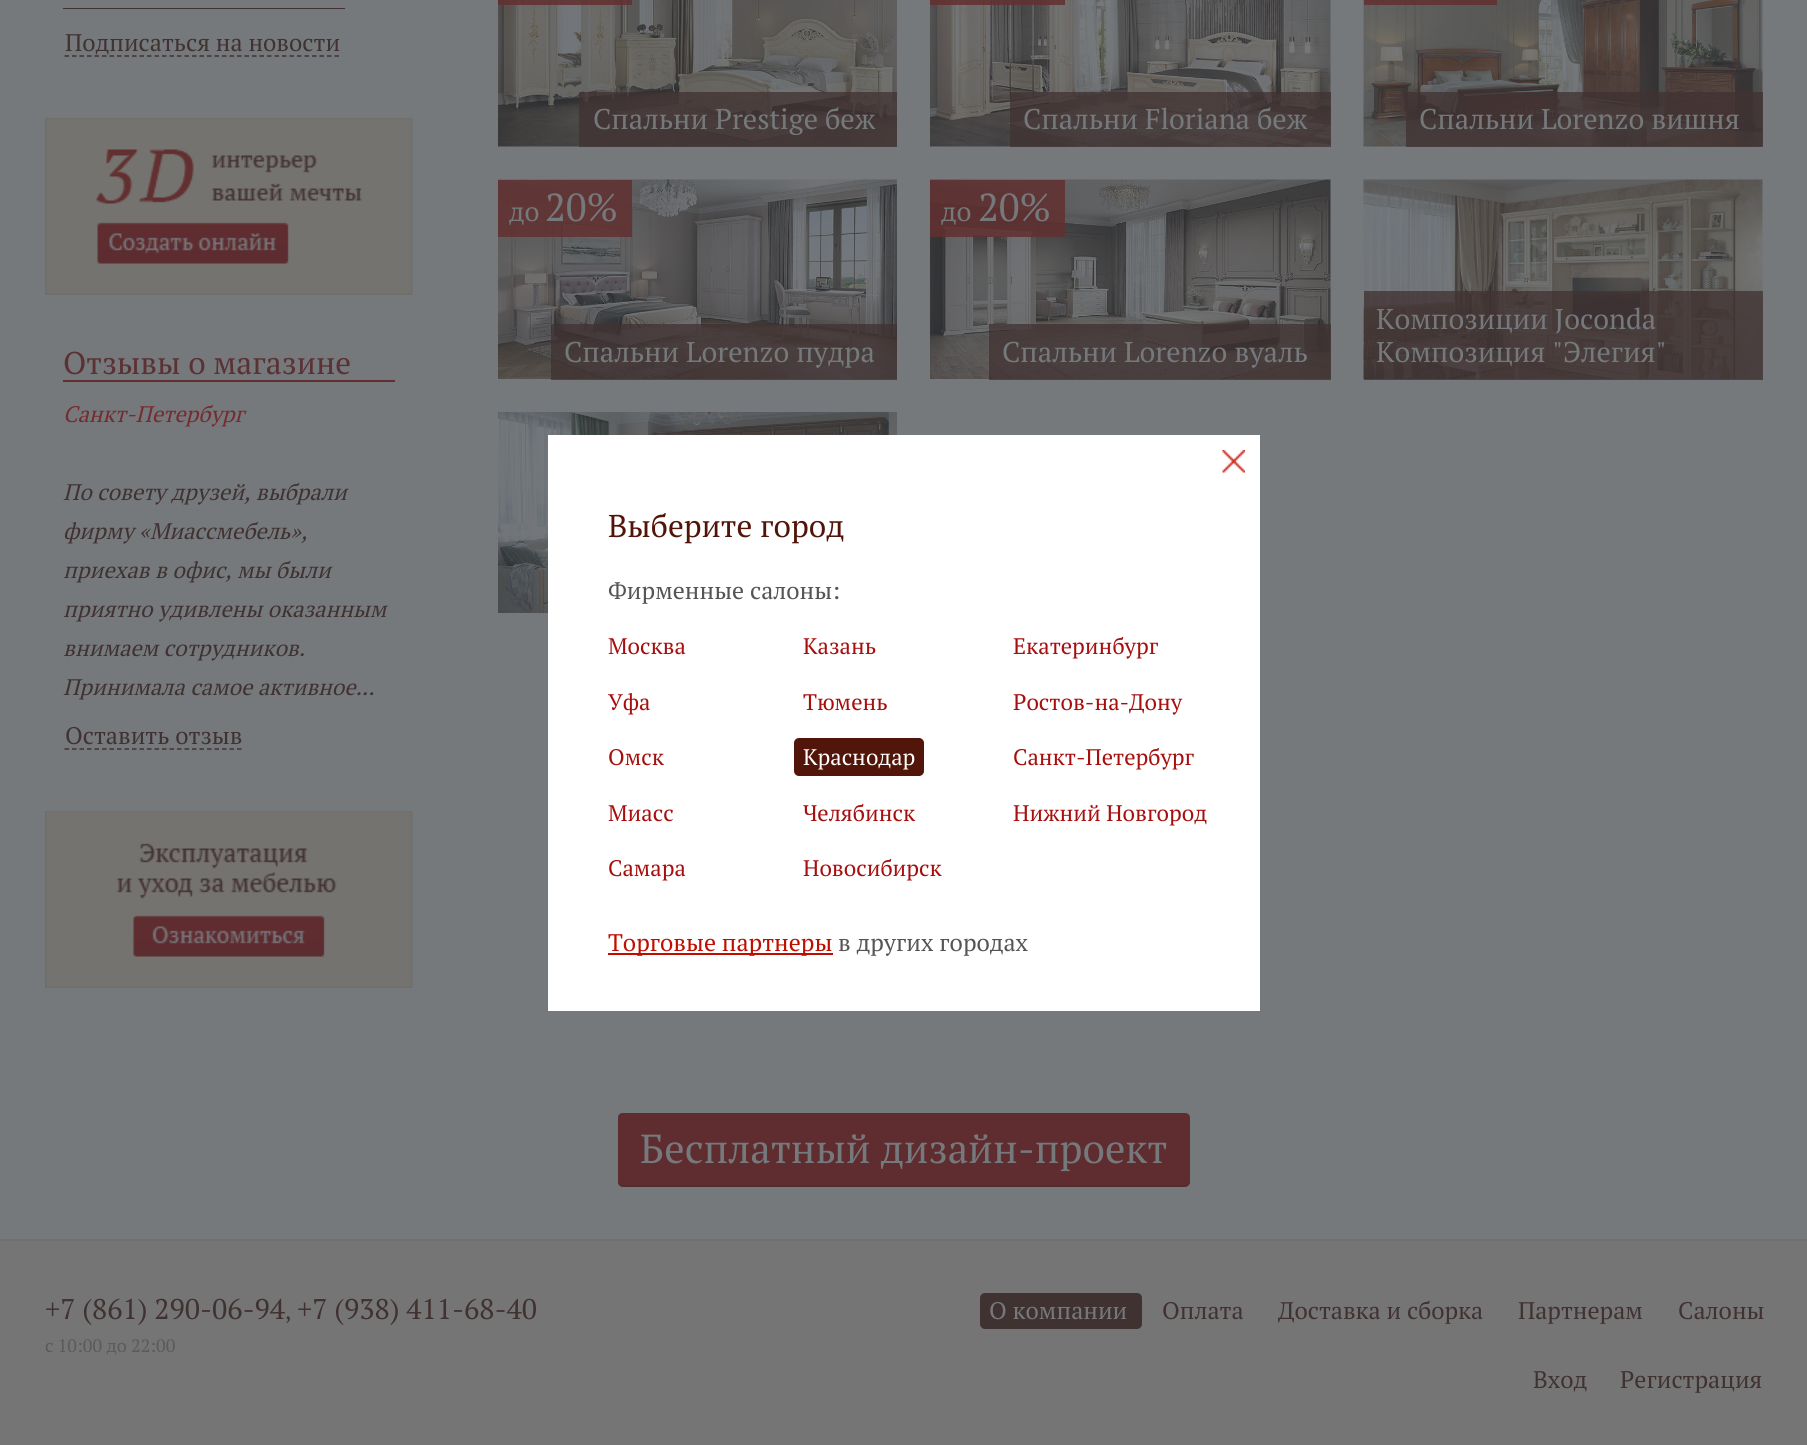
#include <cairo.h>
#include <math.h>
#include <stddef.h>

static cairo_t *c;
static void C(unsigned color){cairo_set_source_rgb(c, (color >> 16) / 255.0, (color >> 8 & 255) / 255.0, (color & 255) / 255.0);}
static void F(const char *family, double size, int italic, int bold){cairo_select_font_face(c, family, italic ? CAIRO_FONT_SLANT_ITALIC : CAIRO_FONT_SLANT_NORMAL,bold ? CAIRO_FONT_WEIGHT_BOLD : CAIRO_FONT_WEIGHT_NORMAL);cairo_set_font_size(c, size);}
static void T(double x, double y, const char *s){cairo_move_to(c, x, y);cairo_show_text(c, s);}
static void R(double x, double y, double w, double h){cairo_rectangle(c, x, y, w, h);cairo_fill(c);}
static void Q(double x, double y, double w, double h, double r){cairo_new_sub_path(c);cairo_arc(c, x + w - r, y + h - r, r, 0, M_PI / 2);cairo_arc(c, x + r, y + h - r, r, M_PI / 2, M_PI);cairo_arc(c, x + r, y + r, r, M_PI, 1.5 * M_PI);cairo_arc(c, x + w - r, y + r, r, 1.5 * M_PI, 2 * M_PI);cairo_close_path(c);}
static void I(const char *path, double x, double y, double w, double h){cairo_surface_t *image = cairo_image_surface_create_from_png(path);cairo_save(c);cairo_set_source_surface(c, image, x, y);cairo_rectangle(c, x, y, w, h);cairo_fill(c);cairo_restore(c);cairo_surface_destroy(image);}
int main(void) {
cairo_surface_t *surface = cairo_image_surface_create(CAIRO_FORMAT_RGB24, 1807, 1445);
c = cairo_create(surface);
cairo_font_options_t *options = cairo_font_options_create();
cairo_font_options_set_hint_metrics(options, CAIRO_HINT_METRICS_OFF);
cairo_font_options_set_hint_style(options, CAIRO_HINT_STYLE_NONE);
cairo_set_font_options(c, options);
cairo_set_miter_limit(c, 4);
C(0x75797c);
cairo_paint(c);
C(0x413232);
R(63,8,282,1);
cairo_new_path(c);
cairo_move_to(c,64.5,56);
cairo_line_to(c,339,56);
cairo_set_line_width(c,1.5);
cairo_set_dash(c,(double[]){4.5,3},2,0);
cairo_stroke(c);
F("PT Serif",24,0,0);
T(65,51,"Подписаться на новости");
I("1.png",45,118,368,177);
C(0x623030);
R(63,380,332,2);
F("PT Serif",31.5,0,0);
C(0x5b3134);
T(63,374,"Отзывы о магазине");
F("PT Serif",22.5,1,0);
C(0x752c30);
T(63,422,"Санкт-Петербург");
C(0x413232);
T(63,500,"По совету друзей, выбрали");
T(63,539,"фирму «Миассмебель»,");
T(63,578,"приехав в офис, мы были");
T(63,617,"приятно удивлены оказанным");
T(63,656,"внимаем сотрудников.");
T(63,695,"Принимала самое активное...");
cairo_new_path(c);
cairo_move_to(c,64.5,749);
cairo_line_to(c,241.5,749);
cairo_stroke(c);
F("PT Serif",24,0,0);
T(65,744,"Оставить отзыв");
I("2.png",45,811,368,177);
I("3.png",498,0,399,147);
cairo_set_source_rgba(c,0.384,0.188,0.188,0.85);
R(498,0,134,5);
cairo_set_source_rgba(c,0.255,0.196,0.196,0.75);
R(579,92,318,55);
F("PT Serif",28.5,0,0);
C(0x75797c);
T(593,129,"Спальни Prestige беж");
I("4.png",930,0,401,147);
cairo_set_source_rgba(c,0.384,0.188,0.188,0.85);
R(930,0,135,5);
cairo_set_source_rgba(c,0.255,0.196,0.196,0.75);
R(1010,92,321,55);
C(0x75797c);
T(1023,129,"Спальни Floriana беж");
I("5.png",1363,0,400,147);
cairo_set_source_rgba(c,0.384,0.188,0.188,0.85);
R(1364,0,133,5);
cairo_set_source_rgba(c,0.255,0.196,0.196,0.75);
R(1406,92,357,55);
C(0x75797c);
T(1419,129,"Спальни Lorenzo вишня");
I("6.png",498,179,399,200);
cairo_set_source_rgba(c,0.384,0.188,0.188,0.85);
R(498,180,134,57);
F("PT Serif",27,0,0);
C(0x75797c);
T(509,221,"до");
F("PT Serif",39,0,0);
T(545,221,"20%");
cairo_set_source_rgba(c,0.255,0.196,0.196,0.75);
R(551,324,346,56);
F("PT Serif",28.5,0,0);
C(0x75797c);
T(564,362,"Спальни Lorenzo пудра");
I("7.png",930,179,401,200);
cairo_set_source_rgba(c,0.384,0.188,0.188,0.85);
R(930,180,135,57);
F("PT Serif",27,0,0);
C(0x75797c);
T(941,221,"до");
F("PT Serif",39,0,0);
T(978,221,"20%");
cairo_set_source_rgba(c,0.255,0.196,0.196,0.75);
R(989,324,342,56);
F("PT Serif",28.5,0,0);
C(0x75797c);
T(1002,362,"Спальни Lorenzo вуаль");
I("8.png",1363,179,400,200);
cairo_set_source_rgba(c,0.255,0.196,0.196,0.75);
R(1364,291,399,89);
C(0x75797c);
T(1376,329,"Композиции Joconda");
T(1376,362,"Композиция \"Элегия\"");
I("9.png",498,412,399,201);
C(0x5f2c30);
Q(618,1113,572,74,5);
cairo_fill(c);
cairo_new_path(c);
cairo_move_to(c,1187.5,1184.5);
cairo_line_to(c,1185,1186);
cairo_line_to(c,622.5,1186);
cairo_line_to(c,620,1184.5);
C(0x4d2c30);
cairo_set_dash(c,NULL,0,0);
cairo_stroke(c);
cairo_new_path(c);
cairo_move_to(c,620,1184.5);
cairo_curve_to(c,619,1184,619,1183,619,1182);
cairo_line_to(c,619,1117.5);
cairo_curve_to(c,619,1116.5,619,1115.5,620,1115);
cairo_curve_to(c,620.5,1114,621.5,1114,622.5,1114);
cairo_line_to(c,1185,1114);
cairo_curve_to(c,1186,1114,1187,1114,1187.5,1115);
cairo_curve_to(c,1188.5,1115.5,1189,1116.5,1189,1117.5);
cairo_line_to(c,1189,1182);
cairo_curve_to(c,1189,1183,1188.5,1184,1187.5,1184.5);
C(0x5f2c30);
cairo_stroke(c);
F("PT Serif",40.5,0,0);
C(0x75797c);
T(640,1163,"Бесплатный дизайн-проект");
C(0xffffff);
R(548,435,712,576);
I("10.png",1222,450,23,23);
F("PT Serif",31.5,0,0);
C(0x511408);
T(608,537,"Выберите город");
F("PT Serif",24,0,0);
C(0x555555);
T(608,599,"Фирменные салоны:");
F("PT Serif",22.5,0,0);
C(0xa70f0e);
T(608,654,"Москва");
T(803,654,"Казань");
T(1013,654,"Екатеринбург");
T(608,710,"Уфа");
T(803,710,"Тюмень");
T(1013,710,"Ростов-на-Дону");
T(608,765,"Омск");
C(0x521509);
Q(794,738,130,38,5);
cairo_fill(c);
C(0xffffff);
T(803,765,"Краснодар");
C(0xa70f0e);
T(1013,765,"Санкт-Петербург");
T(608,821,"Миасс");
T(803,821,"Челябинск");
T(1013,821,"Нижний Новгород");
T(608,876,"Самара");
T(803,876,"Новосибирск");
C(0xbf0e00);
R(608,953,225,2);
F("PT Serif",24,0,0);
T(608,951,"Торговые партнеры");
C(0x555555);
T(838,951,"в других городах");
C(0x70706d);
R(0,1239,1807,2);
C(0x757576);
R(0,1241,1807,204);
F("PT Serif",28.5,0,0);
C(0x413232);
T(45,1319,"+7 (861) 290-06-94");
F("PT Serif",22.5,0,0);
T(285,1319,",");
F("PT Serif",28.5,0,0);
T(297,1319,"+7 (938) 411-68-40");
F("PT Serif",18,0,0);
C(0x5c5959);
T(45,1352,"с 10:00 до 22:00");
C(0x413232);
Q(980,1293,162,36,5);
cairo_fill(c);
F("PT Serif",24,0,0);
C(0x75797c);
T(989,1319,"О компании");
C(0x413232);
T(1162,1319,"Оплата");
T(1278,1319,"Доставка и сборка");
T(1518,1319,"Партнерам");
T(1678,1319,"Салоны");
T(1533,1388,"Вход");
T(1620,1388,"Регистрация");
cairo_surface_write_to_png(surface, "o.png");
cairo_font_options_destroy(options);
cairo_destroy(c);
cairo_surface_destroy(surface);
return 0;
}
